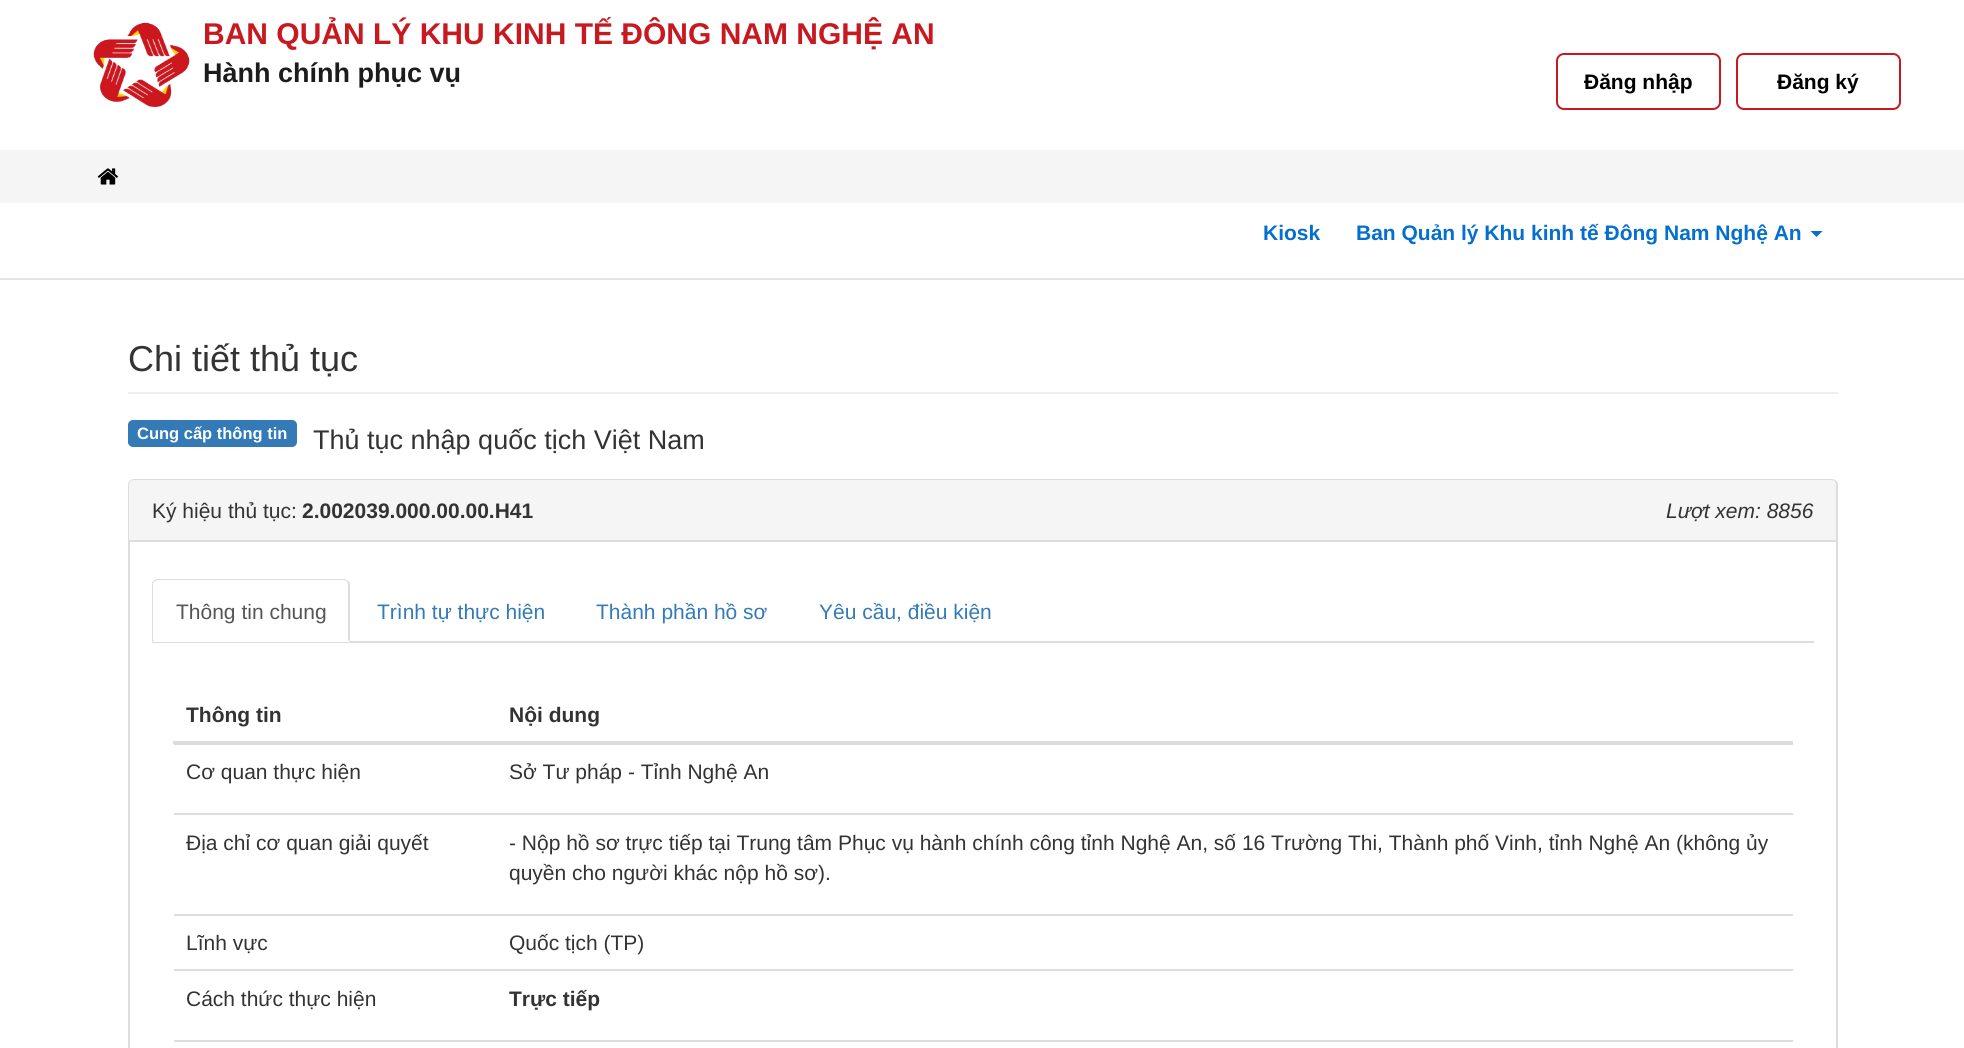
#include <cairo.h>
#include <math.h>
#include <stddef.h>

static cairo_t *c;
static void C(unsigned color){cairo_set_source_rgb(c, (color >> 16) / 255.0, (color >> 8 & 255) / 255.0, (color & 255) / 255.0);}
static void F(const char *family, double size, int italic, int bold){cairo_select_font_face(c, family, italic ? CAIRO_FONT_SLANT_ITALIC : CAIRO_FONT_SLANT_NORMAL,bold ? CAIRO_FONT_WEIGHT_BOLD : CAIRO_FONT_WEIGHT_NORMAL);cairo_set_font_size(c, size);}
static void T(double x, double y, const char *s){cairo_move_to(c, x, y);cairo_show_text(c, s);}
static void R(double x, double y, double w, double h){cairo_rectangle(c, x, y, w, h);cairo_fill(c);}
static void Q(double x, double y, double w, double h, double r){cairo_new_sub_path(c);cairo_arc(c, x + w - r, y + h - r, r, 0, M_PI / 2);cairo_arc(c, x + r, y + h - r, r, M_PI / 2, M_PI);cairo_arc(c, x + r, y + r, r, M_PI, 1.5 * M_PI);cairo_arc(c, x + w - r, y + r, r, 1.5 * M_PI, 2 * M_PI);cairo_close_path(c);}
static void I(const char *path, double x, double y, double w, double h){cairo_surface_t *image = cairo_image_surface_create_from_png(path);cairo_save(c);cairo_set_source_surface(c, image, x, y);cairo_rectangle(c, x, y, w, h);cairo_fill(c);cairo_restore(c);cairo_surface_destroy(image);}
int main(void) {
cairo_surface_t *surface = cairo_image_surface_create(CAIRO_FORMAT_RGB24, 1964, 1048);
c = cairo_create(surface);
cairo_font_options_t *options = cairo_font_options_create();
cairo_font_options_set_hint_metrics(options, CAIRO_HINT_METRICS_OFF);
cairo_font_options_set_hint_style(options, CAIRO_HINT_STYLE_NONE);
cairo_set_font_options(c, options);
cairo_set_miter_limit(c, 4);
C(0xffffff);
cairo_paint(c);
I("1.png",93,22,97,86);
F("Liberation Sans",30,0,1);
C(0xc7191f);
T(203,44,"BAN QUẢN LÝ KHU KINH TẾ ĐÔNG NAM NGHỆ AN");
F("Liberation Sans",27,0,1);
C(0x1c1c1c);
T(203,82,"Hành chính phục vụ");
Q(1557,54,163,55,7);
C(0xc7191f);
cairo_stroke(c);
F("Liberation Sans",21,0,1);
C(0x000000);
T(1584,89,"Đăng nhập");
Q(1737,54,163,55,7);
C(0xc7191f);
cairo_stroke(c);
C(0x000000);
T(1777,89,"Đăng ký");
C(0xf5f5f5);
R(0,150,1964,53);
I("2.png",97,168,21,17);
C(0xe5e5e5);
R(0,278,1964,2);
C(0x046fce);
T(1263,240,"Kiosk");
T(1356,240,"Ban Quản lý Khu kinh tế Đông Nam Nghệ An");
cairo_new_path(c);
cairo_move_to(c,1810.5,231);
cairo_line_to(c,1822.5,231);
cairo_line_to(c,1816.5,237);
cairo_close_path(c);
cairo_fill(c);
C(0xeeeeee);
R(128,392,1710,2);
F("Liberation Sans",36,0,0);
C(0x333333);
T(128,371,"Chi tiết thủ tục");
C(0x337ab7);
Q(128,420,169,27,5);
cairo_fill(c);
F("Liberation Sans",16.5,0,1);
C(0xffffff);
T(137,439,"Cung cấp thông tin");
F("Liberation Sans",27,0,0);
C(0x333333);
T(313,449,"Thủ tục nhập quốc tịch Việt Nam");
Q(129,480,1708,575,5);
C(0xdddddd);
cairo_stroke(c);
C(0xf5f5f5);
cairo_new_path(c);
cairo_move_to(c,134,480);
cairo_line_to(c,1831,480);
cairo_curve_to(c,1834,480,1836,482,1836,485);
cairo_line_to(c,1836,542);
cairo_line_to(c,129,542);
cairo_line_to(c,129,485);
cairo_curve_to(c,129,482,131,480,134,480);
cairo_close_path(c);
cairo_fill(c);
C(0xdddddd);
R(129,540,1707,2);
F("Liberation Sans",21,0,0);
C(0x333333);
T(152,518,"Ký hiệu thủ tục:");
F("Liberation Sans",21,0,1);
T(302,518,"2.002039.000.00.00.H41");
F("Liberation Sans",21,1,0);
T(1666,518,"Lượt xem: 8856");
C(0xdddddd);
R(152,641,1662,2);
C(0xffffff);
cairo_new_path(c);
cairo_move_to(c,158,579);
cairo_line_to(c,344,579);
cairo_curve_to(c,347.5,579,350,581.5,350,585);
cairo_line_to(c,350,642);
cairo_line_to(c,152,642);
cairo_line_to(c,152,585);
cairo_curve_to(c,152,581.5,154.5,579,158,579);
cairo_close_path(c);
cairo_fill(c);
C(0xdddddd);
cairo_new_path(c);
cairo_move_to(c,158,579);
cairo_curve_to(c,156,579,154,580,153,581);
cairo_line_to(c,154,582);
cairo_line_to(c,157,580);
cairo_line_to(c,344,580);
cairo_curve_to(c,345,580,346,581,347,582);
cairo_line_to(c,348,581);
cairo_curve_to(c,347,580,345,579,344,579);
cairo_close_path(c);
cairo_fill(c);
cairo_new_path(c);
cairo_move_to(c,350,583);
cairo_line_to(c,350,642);
cairo_line_to(c,348,640);
cairo_line_to(c,348,585);
cairo_curve_to(c,348,584,348,583,347,582);
cairo_line_to(c,348,581);
cairo_close_path(c);
cairo_fill(c);
cairo_new_path(c);
cairo_move_to(c,153,581);
cairo_curve_to(c,152,582,152,584,152,585);
cairo_line_to(c,152,642);
cairo_line_to(c,154,640);
cairo_line_to(c,153,640);
cairo_line_to(c,153,585);
cairo_curve_to(c,153,584,153,583,154,582);
cairo_close_path(c);
cairo_fill(c);
F("Liberation Sans",21,0,0);
C(0x555555);
T(176,619,"Thông tin chung");
C(0x337ab7);
T(377,619,"Trình tự thực hiện");
T(596,619,"Thành phần hồ sơ");
T(819,619,"Yêu cầu, điều kiện");
F("Liberation Sans",21,0,1);
C(0x333333);
T(186,722,"Thông tin");
C(0xdddddd);
R(173,741,1620,3);
C(0x333333);
T(509,722,"Nội dung");
F("Liberation Sans",21,0,0);
T(186,779,"Cơ quan thực hiện");
C(0xdddddd);
R(174,744,1619,1);
C(0x333333);
T(509,779,"Sở Tư pháp - Tỉnh Nghệ An");
T(186,850,"Địa chỉ cơ quan giải quyết");
C(0xdddddd);
R(174,813,1619,2);
C(0x333333);
T(509,850,"- Nộp hồ sơ trực tiếp tại Trung tâm Phục vụ hành chính công tỉnh Nghệ An, số 16 Trường Thi, Thành phố Vinh, tỉnh Nghệ An (không ủy");
T(509,880,"quyền cho người khác nộp hồ sơ).");
T(186,950,"Lĩnh vực");
C(0xdddddd);
R(174,914,1619,2);
C(0x333333);
T(509,950,"Quốc tịch (TP)");
T(186,1006,"Cách thức thực hiện");
C(0xdddddd);
R(174,969,1619,2);
F("Liberation Sans",21,0,1);
C(0x333333);
T(509,1006,"Trực tiếp");
C(0xdddddd);
R(174,1040,1619,2);
cairo_surface_write_to_png(surface, "o.png");
cairo_font_options_destroy(options);
cairo_destroy(c);
cairo_surface_destroy(surface);
return 0;
}
